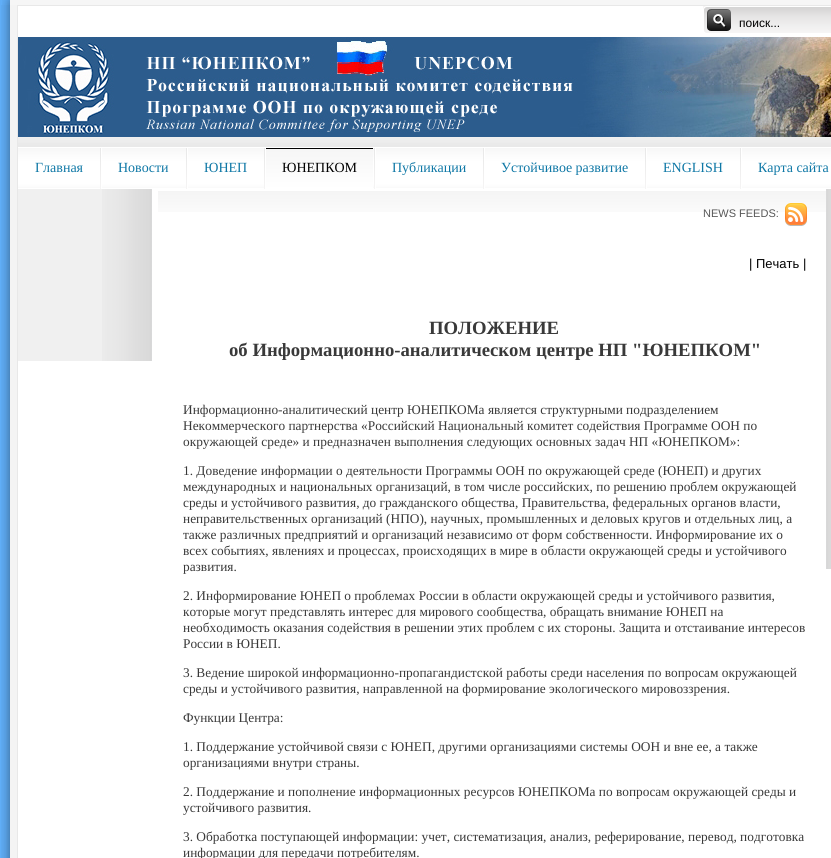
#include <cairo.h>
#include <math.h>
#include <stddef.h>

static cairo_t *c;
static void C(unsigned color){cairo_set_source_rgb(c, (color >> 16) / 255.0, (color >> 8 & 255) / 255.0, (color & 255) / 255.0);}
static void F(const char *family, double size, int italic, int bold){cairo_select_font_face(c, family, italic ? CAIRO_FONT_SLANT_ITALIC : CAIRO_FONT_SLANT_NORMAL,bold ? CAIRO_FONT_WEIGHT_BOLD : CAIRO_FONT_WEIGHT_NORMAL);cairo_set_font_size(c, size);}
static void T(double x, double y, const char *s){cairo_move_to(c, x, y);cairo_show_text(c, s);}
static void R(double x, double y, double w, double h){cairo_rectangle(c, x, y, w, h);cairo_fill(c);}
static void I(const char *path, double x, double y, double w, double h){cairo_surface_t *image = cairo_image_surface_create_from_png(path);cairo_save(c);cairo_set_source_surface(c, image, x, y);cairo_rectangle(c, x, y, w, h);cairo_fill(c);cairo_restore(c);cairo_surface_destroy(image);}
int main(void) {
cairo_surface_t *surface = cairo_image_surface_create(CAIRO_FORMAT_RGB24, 831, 858);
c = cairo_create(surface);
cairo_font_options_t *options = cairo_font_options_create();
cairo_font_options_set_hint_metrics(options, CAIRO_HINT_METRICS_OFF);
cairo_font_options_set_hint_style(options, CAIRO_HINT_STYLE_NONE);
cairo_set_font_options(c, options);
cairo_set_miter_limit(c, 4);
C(0x60aef7);
cairo_paint(c);
I("1.png",2,0,15,5);
C(0xf6f6f6);
R(17,0,814,5);
I("2.png",1,5,16,853);
C(0xffffff);
cairo_rectangle(c,17.5,5.5,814,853);
cairo_fill_preserve(c);
C(0xe8e8e8);
cairo_set_line_width(c,1);
cairo_stroke(c);
I("3.png",703,6,128,27);
F("Liberation Sans",12,0,0);
C(0x000000);
T(739,27,"поиск...");
I("4.png",18,137,813,10);
I("5.png",18,37,813,100);
I("6.png",18,148,813,40);
I("7.png",100,148,2,41);
F("Liberation Serif",14,0,0);
C(0x0f78a6);
T(35,172,"Главная");
I("7.png",186,148,2,41);
T(118,172,"Новости");
I("7.png",264,148,2,41);
T(204,172,"ЮНЕП");
I("7.png",374,148,2,41);
I("8.png",266,148,107,40);
C(0x000000);
T(282,172,"ЮНЕПКОМ");
I("7.png",483,148,2,41);
C(0x0f78a6);
T(392,172,"Публикации");
I("7.png",645,148,2,41);
T(501,172,"Устойчивое развитие");
I("7.png",740,148,2,41);
T(663,172,"ENGLISH");
T(758,172,"Карта сайта");
C(0xf0f0f0);
R(18,189,134,172);
I("9.png",102,189,50,172);
I("10.png",158,191,668,21);
F("Liberation Sans",11,0,0);
C(0x575757);
T(703,217,"NEWS FEEDS:");
I("11.png",785,203,22,23);
F("Liberation Sans",13,0,0);
C(0x000000);
T(749,268,"| Печать |");
F("Liberation Serif",18.7,0,1);
C(0x393939);
T(429,334,"ПОЛОЖЕНИЕ");
T(229,356,"об Информационно-аналитическом центре НП \"ЮНЕПКОМ\"");
F("Liberation Serif",13.35,0,0);
T(183,414,"Информационно-аналитический центр ЮНЕПКОМа является структурными подразделением");
T(183,430,"Некоммерческого партнерства «Российский Национальный комитет содействия Программе ООН по");
T(183,446,"окружающей среде» и предназначен выполнения следующих основных задач НП «ЮНЕПКОМ»:");
T(183,475,"1. Доведение информации о деятельности Программы ООН по окружающей среде (ЮНЕП) и других");
T(183,491,"международных и национальных организаций, в том числе российских, по решению проблем окружающей");
T(183,507,"среды и устойчивого развития, до гражданского общества, Правительства, федеральных органов власти,");
T(183,523,"неправительственных организаций (НПО), научных, промышленных и деловых кругов и отдельных лиц, а");
T(183,539,"также различных предприятий и организаций независимо от форм собственности. Информирование их о");
T(183,555,"всех событиях, явлениях и процессах, происходящих в мире в области окружающей среды и устойчивого");
T(183,571,"развития.");
T(183,600,"2. Информирование ЮНЕП о проблемах России в области окружающей среды и устойчивого развития,");
T(183,616,"которые могут представлять интерес для мирового сообщества, обращать внимание ЮНЕП на");
T(183,632,"необходимость оказания содействия в решении этих проблем с их стороны. Защита и отстаивание интересов");
T(183,648,"России в ЮНЕП.");
T(183,677,"3. Ведение широкой информационно-пропагандистской работы среди населения по вопросам окружающей");
T(183,693,"среды и устойчивого развития, направленной на формирование экологического мировоззрения.");
T(183,722,"Функции Центра:");
T(183,751,"1. Поддержание устойчивой связи с ЮНЕП, другими организациями системы ООН и вне ее, а также");
T(183,767,"организациями внутри страны.");
T(183,796,"2. Поддержание и пополнение информационных ресурсов ЮНЕПКОМа по вопросам окружающей среды и");
T(183,812,"устойчивого развития.");
T(183,841,"3. Обработка поступающей информации: учет, систематизация, анализ, реферирование, перевод, подготовка");
T(183,857,"информации для передачи потребителям.");
C(0xf0f0f0);
R(826,189,5,380);
I("12.png",826,189,5,380);
cairo_surface_write_to_png(surface, "o.png");
cairo_font_options_destroy(options);
cairo_destroy(c);
cairo_surface_destroy(surface);
return 0;
}
